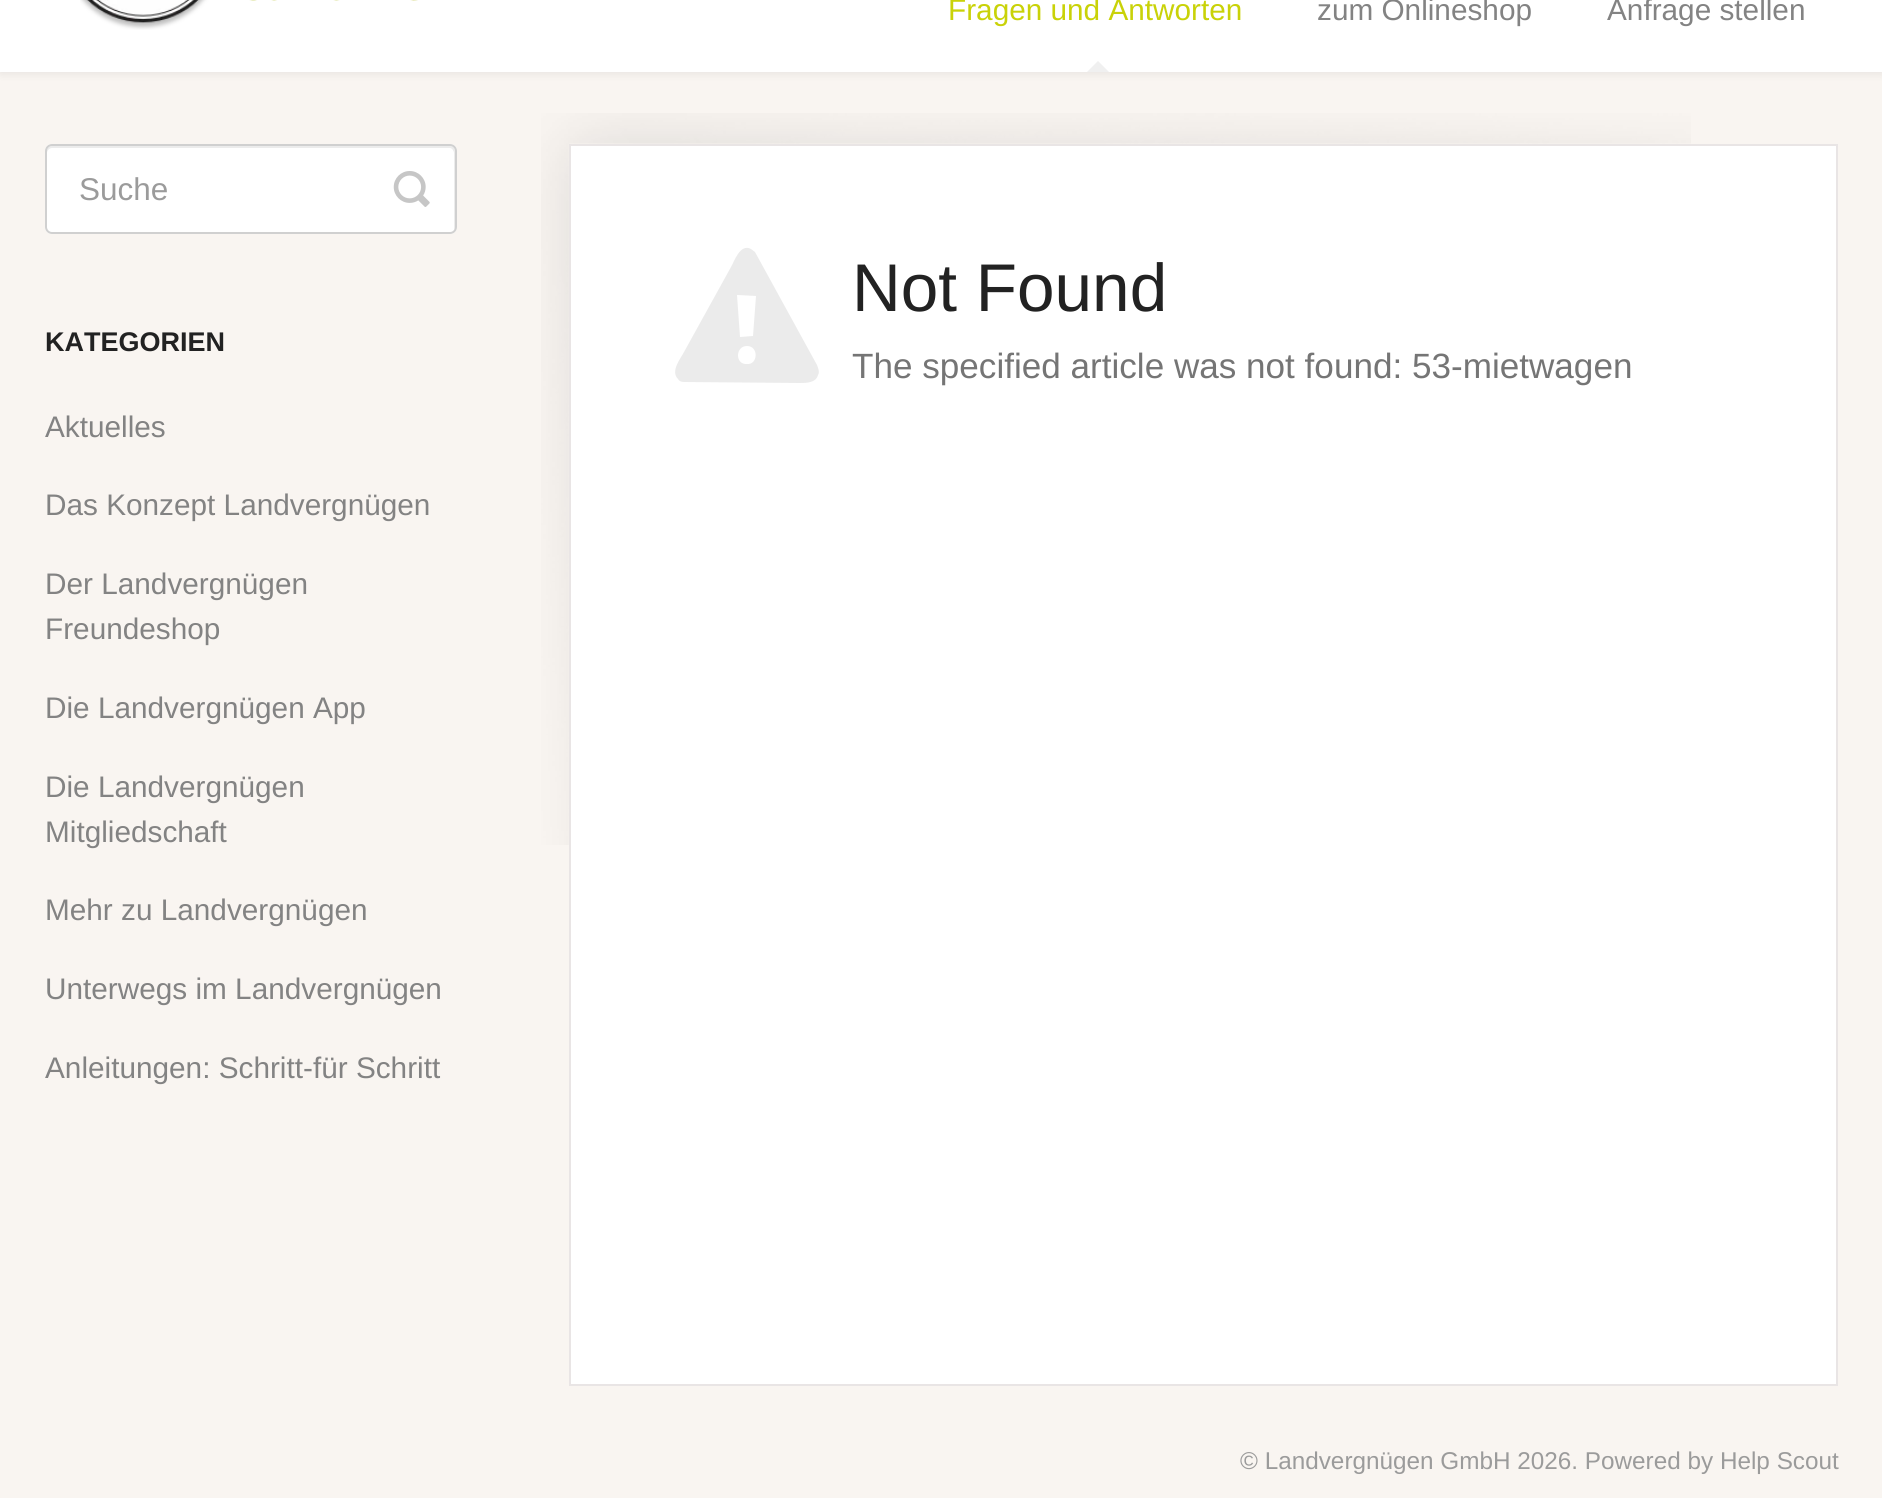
#include <cairo.h>
#include <math.h>
#include <stddef.h>

static cairo_t *c;
static void C(unsigned color){cairo_set_source_rgb(c, (color >> 16) / 255.0, (color >> 8 & 255) / 255.0, (color & 255) / 255.0);}
static void F(const char *family, double size, int italic, int bold){cairo_select_font_face(c, family, italic ? CAIRO_FONT_SLANT_ITALIC : CAIRO_FONT_SLANT_NORMAL,bold ? CAIRO_FONT_WEIGHT_BOLD : CAIRO_FONT_WEIGHT_NORMAL);cairo_set_font_size(c, size);}
static void T(double x, double y, const char *s){cairo_move_to(c, x, y);cairo_show_text(c, s);}
static void R(double x, double y, double w, double h){cairo_rectangle(c, x, y, w, h);cairo_fill(c);}
static void Q(double x, double y, double w, double h, double r){cairo_new_sub_path(c);cairo_arc(c, x + w - r, y + h - r, r, 0, M_PI / 2);cairo_arc(c, x + r, y + h - r, r, M_PI / 2, M_PI);cairo_arc(c, x + r, y + r, r, M_PI, 1.5 * M_PI);cairo_arc(c, x + w - r, y + r, r, 1.5 * M_PI, 2 * M_PI);cairo_close_path(c);}
static void S(double x, double y, double w, double h, double r, double blur, double alpha){cairo_push_group_with_content(c, CAIRO_CONTENT_ALPHA);cairo_set_operator(c, CAIRO_OPERATOR_SOURCE);for (int i = 15; i >= -15 && fmin(w, h) + blur * i / 3 > 0; i -= 2) {double e = blur * i / 6;cairo_set_source_rgba(c, 0, 0, 0, alpha * erfc((i - 1) / 8.5) / 2);Q(x - e, y - e, w + 2 * e, h + 2 * e, fmax(0, fmin(r + e + blur * .6, fmin(w, h) / 2 + e)));cairo_fill(c);}cairo_pattern_t *soft = cairo_pop_group(c);cairo_mask(c, soft);cairo_pattern_destroy(soft);}
static void I(const char *path, double x, double y, double w, double h){cairo_surface_t *image = cairo_image_surface_create_from_png(path);cairo_save(c);cairo_set_source_surface(c, image, x, y);cairo_rectangle(c, x, y, w, h);cairo_fill(c);cairo_restore(c);cairo_surface_destroy(image);}
int main(void) {
cairo_surface_t *surface = cairo_image_surface_create(CAIRO_FORMAT_RGB24, 1882, 1498);
c = cairo_create(surface);
cairo_font_options_t *options = cairo_font_options_create();
cairo_font_options_set_hint_metrics(options, CAIRO_HINT_METRICS_OFF);
cairo_font_options_set_hint_style(options, CAIRO_HINT_STYLE_NONE);
cairo_set_font_options(c, options);
cairo_set_miter_limit(c, 4);
C(0xf9f5f1);
cairo_paint(c);
C(0x000000);
S(0,-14,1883,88,0,4.5,.07);
C(0xffffff);
R(0,0,1882,72);
I("1.png",80,0,338,30);
F("Liberation Sans",29.75,0,0);
C(0xc9d208);
T(948,20,"Fragen und Antworten");
C(0xf0f0f0);
cairo_new_path(c);
cairo_move_to(c,1109,72);
cairo_line_to(c,1087,72);
cairo_line_to(c,1098,61);
cairo_close_path(c);
cairo_fill(c);
C(0x838383);
T(1317,20,"zum Onlineshop");
T(1607,20,"Anfrage stellen");
C(0xffffff);
Q(45,144,412,90,7);
cairo_fill(c);
C(0xececec);
cairo_new_path(c);
cairo_move_to(c,52,148);
cairo_line_to(c,450,148);
cairo_curve_to(c,452,148,454,151,454,153);
cairo_line_to(c,454,230);
cairo_curve_to(c,455,229,455,228,455,227);
cairo_line_to(c,455,151);
cairo_curve_to(c,455,148,453,146,450,146);
cairo_line_to(c,52,146);
cairo_curve_to(c,49,146,47,148,47,151);
cairo_line_to(c,47,153);
cairo_curve_to(c,47,151,49,148,52,148);
cairo_close_path(c);
cairo_fill(c);
Q(46,145,410,88,6);
C(0xd0d0d0);
cairo_stroke(c);
F("Liberation Sans",31.5,0,0);
C(0x9b9b9b);
T(79,200,"Suche");
I("2.png",393,171,37,36);
F("Liberation Sans",27,0,1);
C(0x222222);
T(45,351,"KATEGORIEN");
F("Liberation Sans",29.75,0,0);
C(0x838383);
T(45,437,"Aktuelles");
T(45,515,"Das Konzept Landvergnügen");
T(45,594,"Der Landvergnügen");
T(45,639,"Freundeshop");
T(45,718,"Die Landvergnügen App");
T(45,797,"Die Landvergnügen");
T(45,842,"Mitgliedschaft");
T(45,920,"Mehr zu Landvergnügen");
T(45,999,"Unterwegs im Landvergnügen");
T(45,1078,"Anleitungen: Schritt-für Schritt");
I("3.png",541,113,1150,732);
C(0xffffff);
cairo_rectangle(c,570,145,1267,1240);
cairo_fill_preserve(c);
C(0xe9e5e5);
cairo_stroke(c);
C(0xebebeb);
cairo_new_path(c);
cairo_move_to(c,817,365);
cairo_line_to(c,755,252);
cairo_line_to(c,751,249);
cairo_curve_to(c,740,243,734,262,731,267);
cairo_line_to(c,684,352);
cairo_curve_to(c,681,358,670,371,678,379);
cairo_curve_to(c,679,381,681,382,684,382);
cairo_line_to(c,800,383);
cairo_curve_to(c,806,383,816,383,818,375);
cairo_curve_to(c,820,372,818,368,817,365);
cairo_close_path(c);
cairo_move_to(c,756,296);
cairo_line_to(c,753,336);
cairo_line_to(c,740,337);
cairo_line_to(c,737,295);
cairo_close_path(c);
cairo_move_to(c,747,364);
cairo_curve_to(c,735,365,735,346,747,346);
cairo_curve_to(c,759,346,758,365,747,364);
cairo_close_path(c);
cairo_fill(c);
F("Liberation Sans",67.5,0,0);
C(0x222222);
T(852,311,"Not Found");
F("Liberation Sans",35.1,0,0);
C(0x757575);
T(852,378,"The specified article was not found: 53-mietwagen");
F("Liberation Sans",24.3,0,0);
C(0x9b9b9b);
T(1240,1469,"© Landvergnügen GmbH 2026. Powered by Help Scout");
cairo_surface_write_to_png(surface, "o.png");
cairo_font_options_destroy(options);
cairo_destroy(c);
cairo_surface_destroy(surface);
return 0;
}
